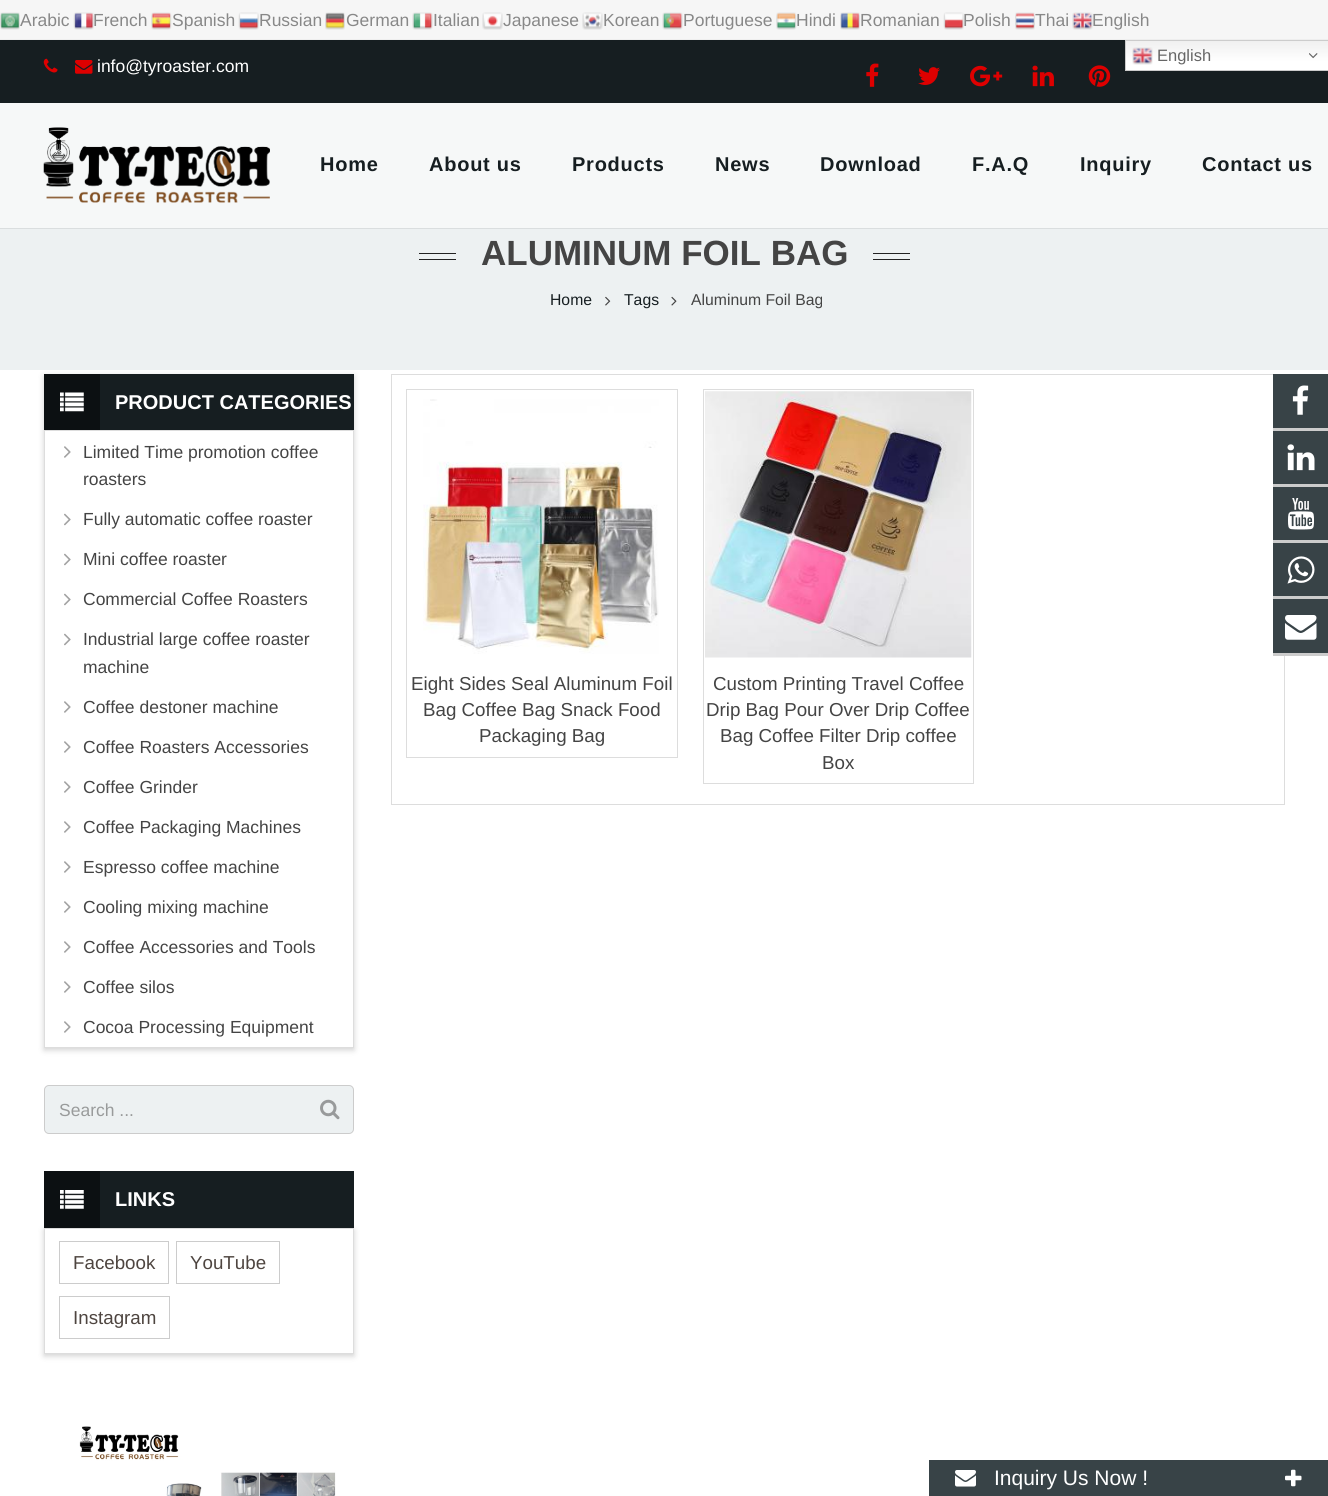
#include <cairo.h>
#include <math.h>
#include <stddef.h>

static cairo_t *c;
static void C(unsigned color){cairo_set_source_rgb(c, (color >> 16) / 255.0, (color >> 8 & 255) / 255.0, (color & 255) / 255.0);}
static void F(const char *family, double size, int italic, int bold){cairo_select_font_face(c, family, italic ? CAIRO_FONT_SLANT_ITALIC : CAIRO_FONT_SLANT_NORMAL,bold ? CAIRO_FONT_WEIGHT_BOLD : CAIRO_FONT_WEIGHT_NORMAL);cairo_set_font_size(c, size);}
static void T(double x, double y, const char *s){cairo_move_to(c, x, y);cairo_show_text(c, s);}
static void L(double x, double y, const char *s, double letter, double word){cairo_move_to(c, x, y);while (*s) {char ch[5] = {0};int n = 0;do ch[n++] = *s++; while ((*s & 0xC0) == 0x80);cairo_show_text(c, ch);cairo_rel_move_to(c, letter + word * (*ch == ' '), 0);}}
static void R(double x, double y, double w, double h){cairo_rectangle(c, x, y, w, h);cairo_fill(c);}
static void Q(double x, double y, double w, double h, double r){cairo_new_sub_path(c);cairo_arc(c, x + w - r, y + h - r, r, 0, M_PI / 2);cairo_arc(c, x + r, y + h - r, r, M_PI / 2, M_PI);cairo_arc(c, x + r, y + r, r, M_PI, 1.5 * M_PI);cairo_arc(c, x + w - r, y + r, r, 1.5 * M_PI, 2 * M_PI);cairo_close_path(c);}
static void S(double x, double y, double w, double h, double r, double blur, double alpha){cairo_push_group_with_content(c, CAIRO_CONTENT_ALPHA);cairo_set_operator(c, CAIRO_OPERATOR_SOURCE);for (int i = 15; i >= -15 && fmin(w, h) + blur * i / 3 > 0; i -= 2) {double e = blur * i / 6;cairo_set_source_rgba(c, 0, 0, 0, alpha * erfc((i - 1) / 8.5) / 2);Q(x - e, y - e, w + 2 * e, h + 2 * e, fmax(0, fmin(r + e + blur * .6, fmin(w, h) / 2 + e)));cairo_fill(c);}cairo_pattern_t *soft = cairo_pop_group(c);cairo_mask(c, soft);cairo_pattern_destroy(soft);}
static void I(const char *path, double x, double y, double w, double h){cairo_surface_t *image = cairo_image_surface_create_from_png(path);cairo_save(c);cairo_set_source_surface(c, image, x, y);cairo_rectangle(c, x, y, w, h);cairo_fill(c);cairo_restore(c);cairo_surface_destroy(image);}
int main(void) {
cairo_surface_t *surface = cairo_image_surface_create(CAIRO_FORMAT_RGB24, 1328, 1496);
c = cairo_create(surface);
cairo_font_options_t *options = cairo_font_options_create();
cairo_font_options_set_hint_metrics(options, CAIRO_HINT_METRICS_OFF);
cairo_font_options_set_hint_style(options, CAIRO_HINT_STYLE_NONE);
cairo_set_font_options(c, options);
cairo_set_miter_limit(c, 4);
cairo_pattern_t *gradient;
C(0xffffff);
cairo_paint(c);
C(0xf6f6f6);
R(0,0,1328,39);
C(0xeeeeee);
R(0,39,1328,1);
I("1.png",0,12,20,18);
F("Liberation Sans",17.5,0,0);
C(0x888888);
T(20,26,"Arabic");
I("2.png",73,12,21,18);
T(93,26,"French");
I("3.png",151,12,21,18);
T(172,26,"Spanish");
I("4.png",238,12,21,18);
T(259,26,"Russian");
I("5.png",325,12,20,18);
T(346,26,"German");
I("6.png",412,12,21,18);
T(433,26,"Italian");
I("7.png",482,12,21,18);
T(503,26,"Japanese");
I("8.png",582,12,21,18);
T(603,26,"Korean");
I("9.png",662,12,21,18);
T(683,26,"Portuguese");
I("10.png",776,12,21,18);
T(796,26,"Hindi");
I("11.png",840,12,20,18);
T(860,26,"Romanian");
I("12.png",943,12,21,18);
T(963,26,"Polish");
I("13.png",1015,12,20,18);
T(1035,26,"Thai");
I("14.png",1072,12,21,18);
T(1092,26,"English");
C(0x161e21);
R(0,40,1328,63);
gradient = cairo_pattern_create_linear(1227,40,1227,71);
cairo_pattern_add_color_stop_rgba(gradient,0,0.937,0.937,0.937,1);
cairo_pattern_add_color_stop_rgba(gradient,.7,1,1,1,1);
cairo_set_source(c,gradient);
cairo_pattern_destroy(gradient);
R(1126,41,202,29);
cairo_rectangle(c,1125.5,40.5,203,30);
C(0xcccccc);
cairo_set_line_width(c,1);
cairo_stroke(c);
I("15.png",1132,47,21,18);
F("Liberation Sans",16.5,0,0);
C(0x666666);
T(1157,61,"English");
I("16.png",1309,53,9,6);
I("17.png",43,58,15,15);
I("18.png",75,60,18,14);
F("Liberation Sans",17.5,0,0);
C(0xffffff);
T(97,72,"info@tyroaster.com");
I("19.png",866,63,13,24);
I("20.png",918,67,22,18);
I("21.png",970,65,33,22);
I("22.png",1032,65,22,22);
I("23.png",1088,65,23,22);
C(0xdadedf);
cairo_new_path(c);
cairo_move_to(c,0,228);
cairo_line_to(c,0,229);
cairo_line_to(c,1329,229);
cairo_line_to(c,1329,104);
cairo_line_to(c,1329,228);
cairo_close_path(c);
cairo_fill(c);
C(0xf6f8f8);
R(0,103,1328,125);
I("24.png",43,127,227,76);
F("Liberation Sans",20,0,1);
C(0x161e21);
L(320,171,"Home",.75,0);
L(429,171,"About us",.75,0);
L(572,171,"Products",.75,0);
L(715,171,"News",.75,0);
L(820,171,"Download",.75,0);
L(972,171,"F.A.Q",.75,0);
L(1080,171,"Inquiry",.75,0);
L(1202,171,"Contact us",.75,0);
cairo_save(c);
cairo_set_fill_rule(c,CAIRO_FILL_RULE_EVEN_ODD);
cairo_new_path(c);
cairo_move_to(c,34,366);
cairo_line_to(c,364,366);
cairo_line_to(c,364,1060);
cairo_line_to(c,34,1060);
cairo_close_path(c);
cairo_move_to(c,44,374);
cairo_line_to(c,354,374);
cairo_line_to(c,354,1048);
cairo_line_to(c,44,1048);
cairo_close_path(c);
cairo_clip(c);
C(0x000000);
S(44,376,310,674,0,3,.18);
cairo_restore(c);
C(0xedf1f2);
R(0,229,1328,141);
C(0x222222);
R(419,253,37,1);
R(419,259,37,1);
F("Liberation Sans",35,0,1);
C(0x444444);
T(481,265,"ALUMINUM FOIL BAG");
C(0x222222);
R(873,253,37,1);
R(873,259,37,1);
F("Liberation Sans",15.75,0,0);
C(0x161e21);
T(550,305,"Home");
I("25.png",605,296,6,10);
T(624,305,"Tags");
I("26.png",671,296,6,10);
C(0x444444);
T(691,305,"Aluminum Foil Bag");
C(0x161e21);
R(100,374,254,56);
C(0x0c1012);
R(44,374,56,56);
I("27.png",60,392,24,20);
F("Liberation Sans",20,0,1);
C(0xffffff);
T(115,409,"PRODUCT CATEGORIES");
cairo_rectangle(c,44.5,430.5,309,617);
C(0xdddddd);
cairo_stroke(c);
I("28.png",64,446,7,12);
F("Liberation Sans",17.5,0,0);
C(0x444444);
T(83,458,"Limited Time promotion coffee");
T(83,485,"roasters");
I("29.png",64,513,7,13);
T(83,525,"Fully automatic coffee roaster");
I("29.png",64,553,7,13);
T(83,565,"Mini coffee roaster");
I("29.png",64,593,7,13);
T(83,605,"Commercial Coffee Roasters");
I("29.png",64,633,7,13);
T(83,645,"Industrial large coffee roaster");
T(83,673,"machine");
I("28.png",64,701,7,12);
T(83,713,"Coffee destoner machine");
I("28.png",64,741,7,12);
T(83,753,"Coffee Roasters Accessories");
I("28.png",64,781,7,12);
T(83,793,"Coffee Grinder");
I("28.png",64,821,7,12);
T(83,833,"Coffee Packaging Machines");
I("28.png",64,861,7,12);
T(83,873,"Espresso coffee machine");
I("28.png",64,901,7,12);
T(83,913,"Cooling mixing machine");
I("28.png",64,941,7,12);
T(83,953,"Coffee Accessories and Tools");
I("28.png",64,981,7,12);
T(83,993,"Coffee silos");
I("28.png",64,1021,7,12);
T(83,1033,"Cocoa Processing Equipment");
C(0xedf1f2);
Q(44.5,1085.5,309,48,4.5);
cairo_fill_preserve(c);
C(0xcccccc);
cairo_stroke(c);
C(0x999b9b);
T(59,1116,"Search ...");
I("30.png",320,1099,20,21);
cairo_save(c);
cairo_set_fill_rule(c,CAIRO_FILL_RULE_EVEN_ODD);
cairo_new_path(c);
cairo_move_to(c,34,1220);
cairo_line_to(c,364,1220);
cairo_line_to(c,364,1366);
cairo_line_to(c,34,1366);
cairo_close_path(c);
cairo_move_to(c,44,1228);
cairo_line_to(c,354,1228);
cairo_line_to(c,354,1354);
cairo_line_to(c,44,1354);
cairo_close_path(c);
cairo_clip(c);
C(0x000000);
S(44,1230,310,126,0,3,.18);
cairo_restore(c);
C(0x161e21);
R(100,1171,254,57);
C(0x0c1012);
R(44,1171,56,57);
I("31.png",60,1190,24,19);
F("Liberation Sans",20,0,1);
C(0xffffff);
T(115,1206,"LINKS");
cairo_rectangle(c,44.5,1228.5,309,125);
C(0xdddddd);
cairo_stroke(c);
cairo_rectangle(c,59.5,1241.5,109,42);
C(0xcccccc);
cairo_stroke(c);
F("Liberation Sans",18.75,0,0);
C(0x4e4540);
T(73,1269,"Facebook");
cairo_rectangle(c,176.5,1241.5,103,42);
C(0xcccccc);
cairo_stroke(c);
C(0x4e4540);
T(190,1269,"YouTube");
cairo_rectangle(c,59.5,1296.5,110,42);
C(0xcccccc);
cairo_stroke(c);
C(0x4e4540);
T(73,1324,"Instagram");
I("32.png",79,1426,257,70);
cairo_rectangle(c,391.5,374.5,893,430);
C(0xdddddd);
cairo_stroke(c);
cairo_rectangle(c,406.5,389.5,271,368);
cairo_stroke(c);
I("33.png",423,399,236,255);
C(0x444444);
T(411,690,"Eight Sides Seal Aluminum Foil");
T(423,716,"Bag Coffee Bag Snack Food");
T(479,742,"Packaging Bag");
cairo_rectangle(c,703.5,389.5,270,394);
C(0xdddddd);
cairo_stroke(c);
I("34.png",705,391,267,267);
C(0x444444);
T(713,690,"Custom Printing Travel Coffee");
T(706,716,"Drip Bag Pour Over Drip Coffee");
T(720,742,"Bag Coffee Filter Drip coffee");
T(822,769,"Box");
C(0x384347);
R(1273,374,55,279);
C(0xcccccc);
R(1273,428,55,3);
I("35.png",1292,385,17,30);
R(1273,484,55,3);
I("36.png",1287,444,28,27);
R(1273,540,55,3);
I("37.png",1288,498,26,32);
R(1273,596,55,3);
I("38.png",1287,556,28,28);
R(1273,653,55,3);
I("39.png",1285,615,32,25);
C(0x384347);
R(929,1460,399,36);
I("40.png",955,1470,21,17);
F("Liberation Sans",21,0,0);
C(0xffffff);
T(994,1485,"Inquiry Us Now !");
I("41.png",1285,1469,17,18);
cairo_surface_write_to_png(surface, "o.png");
cairo_font_options_destroy(options);
cairo_destroy(c);
cairo_surface_destroy(surface);
return 0;
}
